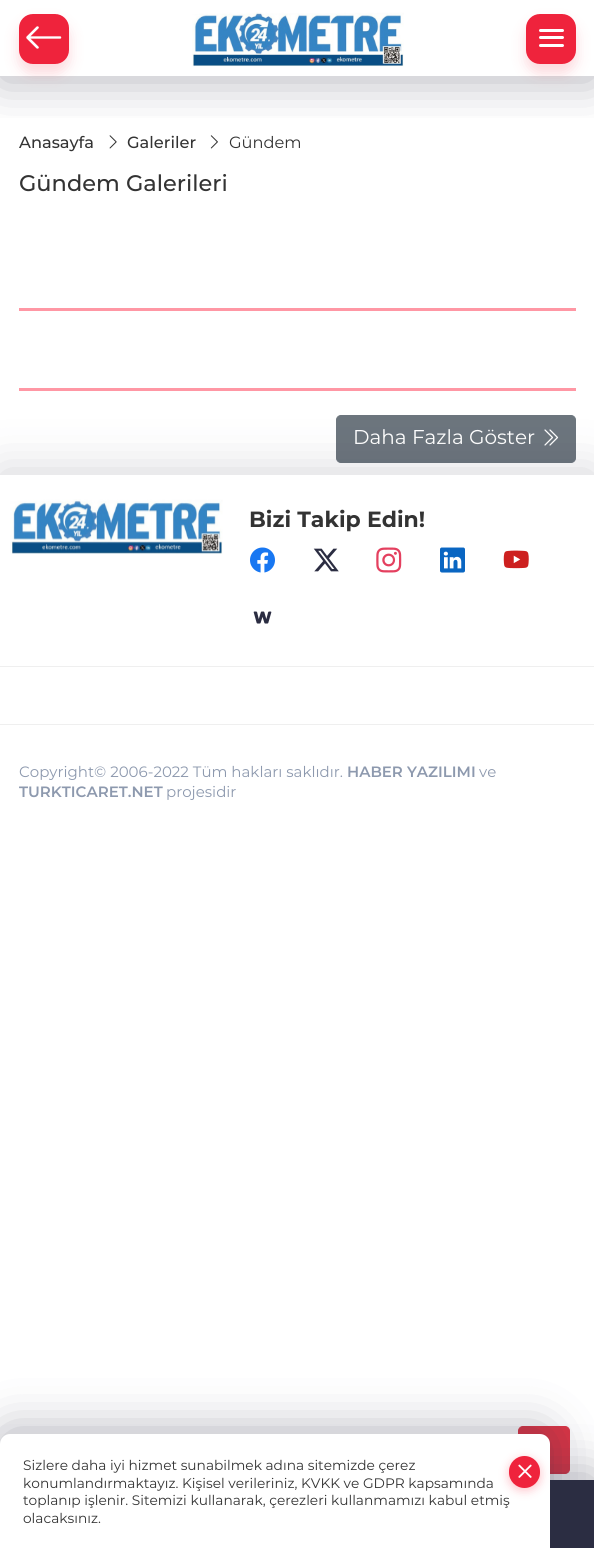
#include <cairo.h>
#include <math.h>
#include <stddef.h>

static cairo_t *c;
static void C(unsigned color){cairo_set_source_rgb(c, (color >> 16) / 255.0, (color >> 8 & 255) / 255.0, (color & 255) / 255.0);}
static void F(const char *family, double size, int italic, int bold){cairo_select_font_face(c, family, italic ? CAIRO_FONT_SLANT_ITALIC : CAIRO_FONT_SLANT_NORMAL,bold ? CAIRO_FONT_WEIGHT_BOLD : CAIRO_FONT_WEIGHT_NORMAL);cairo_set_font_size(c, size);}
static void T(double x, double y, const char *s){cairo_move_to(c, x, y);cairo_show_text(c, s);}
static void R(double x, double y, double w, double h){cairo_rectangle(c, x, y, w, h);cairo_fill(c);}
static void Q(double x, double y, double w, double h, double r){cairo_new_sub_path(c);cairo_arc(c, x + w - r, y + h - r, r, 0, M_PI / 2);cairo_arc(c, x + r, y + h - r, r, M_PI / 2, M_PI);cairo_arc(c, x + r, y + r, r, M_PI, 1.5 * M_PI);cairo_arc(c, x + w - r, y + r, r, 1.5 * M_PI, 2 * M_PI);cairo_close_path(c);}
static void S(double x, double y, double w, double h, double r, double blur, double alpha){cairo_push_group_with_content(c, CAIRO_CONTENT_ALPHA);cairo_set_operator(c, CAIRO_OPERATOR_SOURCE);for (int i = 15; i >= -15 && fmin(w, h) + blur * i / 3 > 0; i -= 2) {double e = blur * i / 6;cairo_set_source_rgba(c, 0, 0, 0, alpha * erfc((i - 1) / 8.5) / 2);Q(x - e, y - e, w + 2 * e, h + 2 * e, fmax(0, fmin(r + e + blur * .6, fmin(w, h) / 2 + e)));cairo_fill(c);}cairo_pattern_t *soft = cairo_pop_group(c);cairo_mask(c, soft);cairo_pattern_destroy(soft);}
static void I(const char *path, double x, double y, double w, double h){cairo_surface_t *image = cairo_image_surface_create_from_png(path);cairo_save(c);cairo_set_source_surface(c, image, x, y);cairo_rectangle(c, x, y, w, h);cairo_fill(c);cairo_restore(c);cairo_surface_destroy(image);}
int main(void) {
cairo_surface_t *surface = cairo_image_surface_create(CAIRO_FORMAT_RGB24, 594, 1548);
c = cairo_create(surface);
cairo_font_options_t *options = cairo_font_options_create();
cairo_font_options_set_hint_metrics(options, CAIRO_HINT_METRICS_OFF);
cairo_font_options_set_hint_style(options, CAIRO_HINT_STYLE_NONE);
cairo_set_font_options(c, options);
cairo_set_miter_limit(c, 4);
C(0xffffff);
cairo_paint(c);
I("3.png",109,135,8,14);
I("4.png",210,135,8,14);
cairo_save(c);
cairo_rectangle(c,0,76,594,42);
cairo_clip(c);
C(0x2b2d42);
S(0,4,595,76,0,24,.36);
cairo_restore(c);
C(0xef233c);
S(19,23,50,50,14,7,.18);
C(0xef233c);
Q(19,14,50,50,14);
cairo_fill(c);
I("1.png",26,26,36,23);
I("2.png",192,12,212,55);
C(0xef233c);
S(526,23,50,50,14,7,.18);
C(0xef233c);
Q(526,14,50,50,14);
cairo_fill(c);
C(0xffffff);
Q(539,36,25,3,1.5);
cairo_fill(c);
Q(539,29,25,3,1.5);
cairo_fill(c);
Q(539,44,25,3,1.5);
cairo_fill(c);
F("Montserrat Medium",16.25,0,0);
C(0x333333);
T(19,148,"Anasayfa");
T(127,148,"Galeriler");
F("Montserrat",16.25,0,0);
T(229,148,"Gündem");
F("Montserrat Medium",22.5,0,0);
T(19,191,"Gündem Galerileri");
C(0xff97a4);
R(19,308,557,3);
R(19,388,557,3);
C(0x6c757d);
Q(336.5,415.5,239,47,4.5);
cairo_fill_preserve(c);
cairo_set_line_width(c,1);
cairo_stroke(c);
F("Montserrat",20,0,0);
C(0xffffff);
T(353,444,"Daha Fazla Göster");
I("5.png",544,429,15,17);
cairo_save(c);
cairo_rectangle(c,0,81,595,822);
cairo_clip(c);
C(0x2b2d42);
S(0,471,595,428,0,24,.2);
cairo_restore(c);
R(0,475,594,428);
C(0xefefef);
R(0,666,594,1);
I("6.png",10,499,213,55);
F("Montserrat",22,0,1);
C(0x333333);
T(249,527,"Bizi Takip Edin!");
I("7.png",250,547,25,26);
I("8.png",313,548,26,24);
I("9.png",376,547,26,26);
I("10.png",440,547,25,26);
I("11.png",503,550,26,19);
I("12.png",253,611,19,13);
C(0xefefef);
R(0,724,594,1);
F("Montserrat",15,0,0);
C(0x8d99ae);
T(19,777,"Copyright© 2006-2022 Tüm hakları saklıdır.");
F("Montserrat SemiBold",15,0,0);
T(347,777,"HABER YAZILIMI");
F("Montserrat",15,0,0);
T(479,777,"ve");
F("Montserrat SemiBold",15,0,0);
T(19,797,"TURKTICARET.NET");
F("Montserrat",15,0,0);
T(166,797,"projesidir");
C(0xdc3545);
Q(518.5,1426.5,51,47,4.5);
cairo_fill_preserve(c);
cairo_stroke(c);
C(0x2b2d42);
S(0,1476,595,69,0,24,.36);
C(0x2b2d42);
R(550,1480,44,68);
C(0x2b2d42);
S(0,1430,550,115,10,24,.36);
C(0xffffff);
cairo_new_path(c);
cairo_move_to(c,10,1434);
cairo_line_to(c,540,1434);
cairo_curve_to(c,545.5,1434,550,1438.5,550,1444);
cairo_line_to(c,550,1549);
cairo_line_to(c,0,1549);
cairo_line_to(c,0,1444);
cairo_curve_to(c,0,1438.5,4.5,1434,10,1434);
cairo_close_path(c);
cairo_fill(c);
F("Montserrat",13.75,0,0);
C(0x333333);
T(23,1470,"Sizlere daha iyi hizmet sunabilmek adına sitemizde çerez");
C(0xff566a);
S(509,1459,31,31,15.5,5,.38);
C(0xef233c);
Q(509,1456,31,32,15.5);
cairo_fill(c);
I("13.png",518,1464,14,14);
C(0x333333);
T(23,1488,"konumlandırmaktayız. Kişisel verileriniz, KVKK ve GDPR kapsamında");
T(23,1505,"toplanıp işlenir. Sitemizi kullanarak, çerezleri kullanmamızı kabul etmiş");
T(23,1523,"olacaksınız.");
cairo_surface_write_to_png(surface, "o.png");
cairo_font_options_destroy(options);
cairo_destroy(c);
cairo_surface_destroy(surface);
return 0;
}
